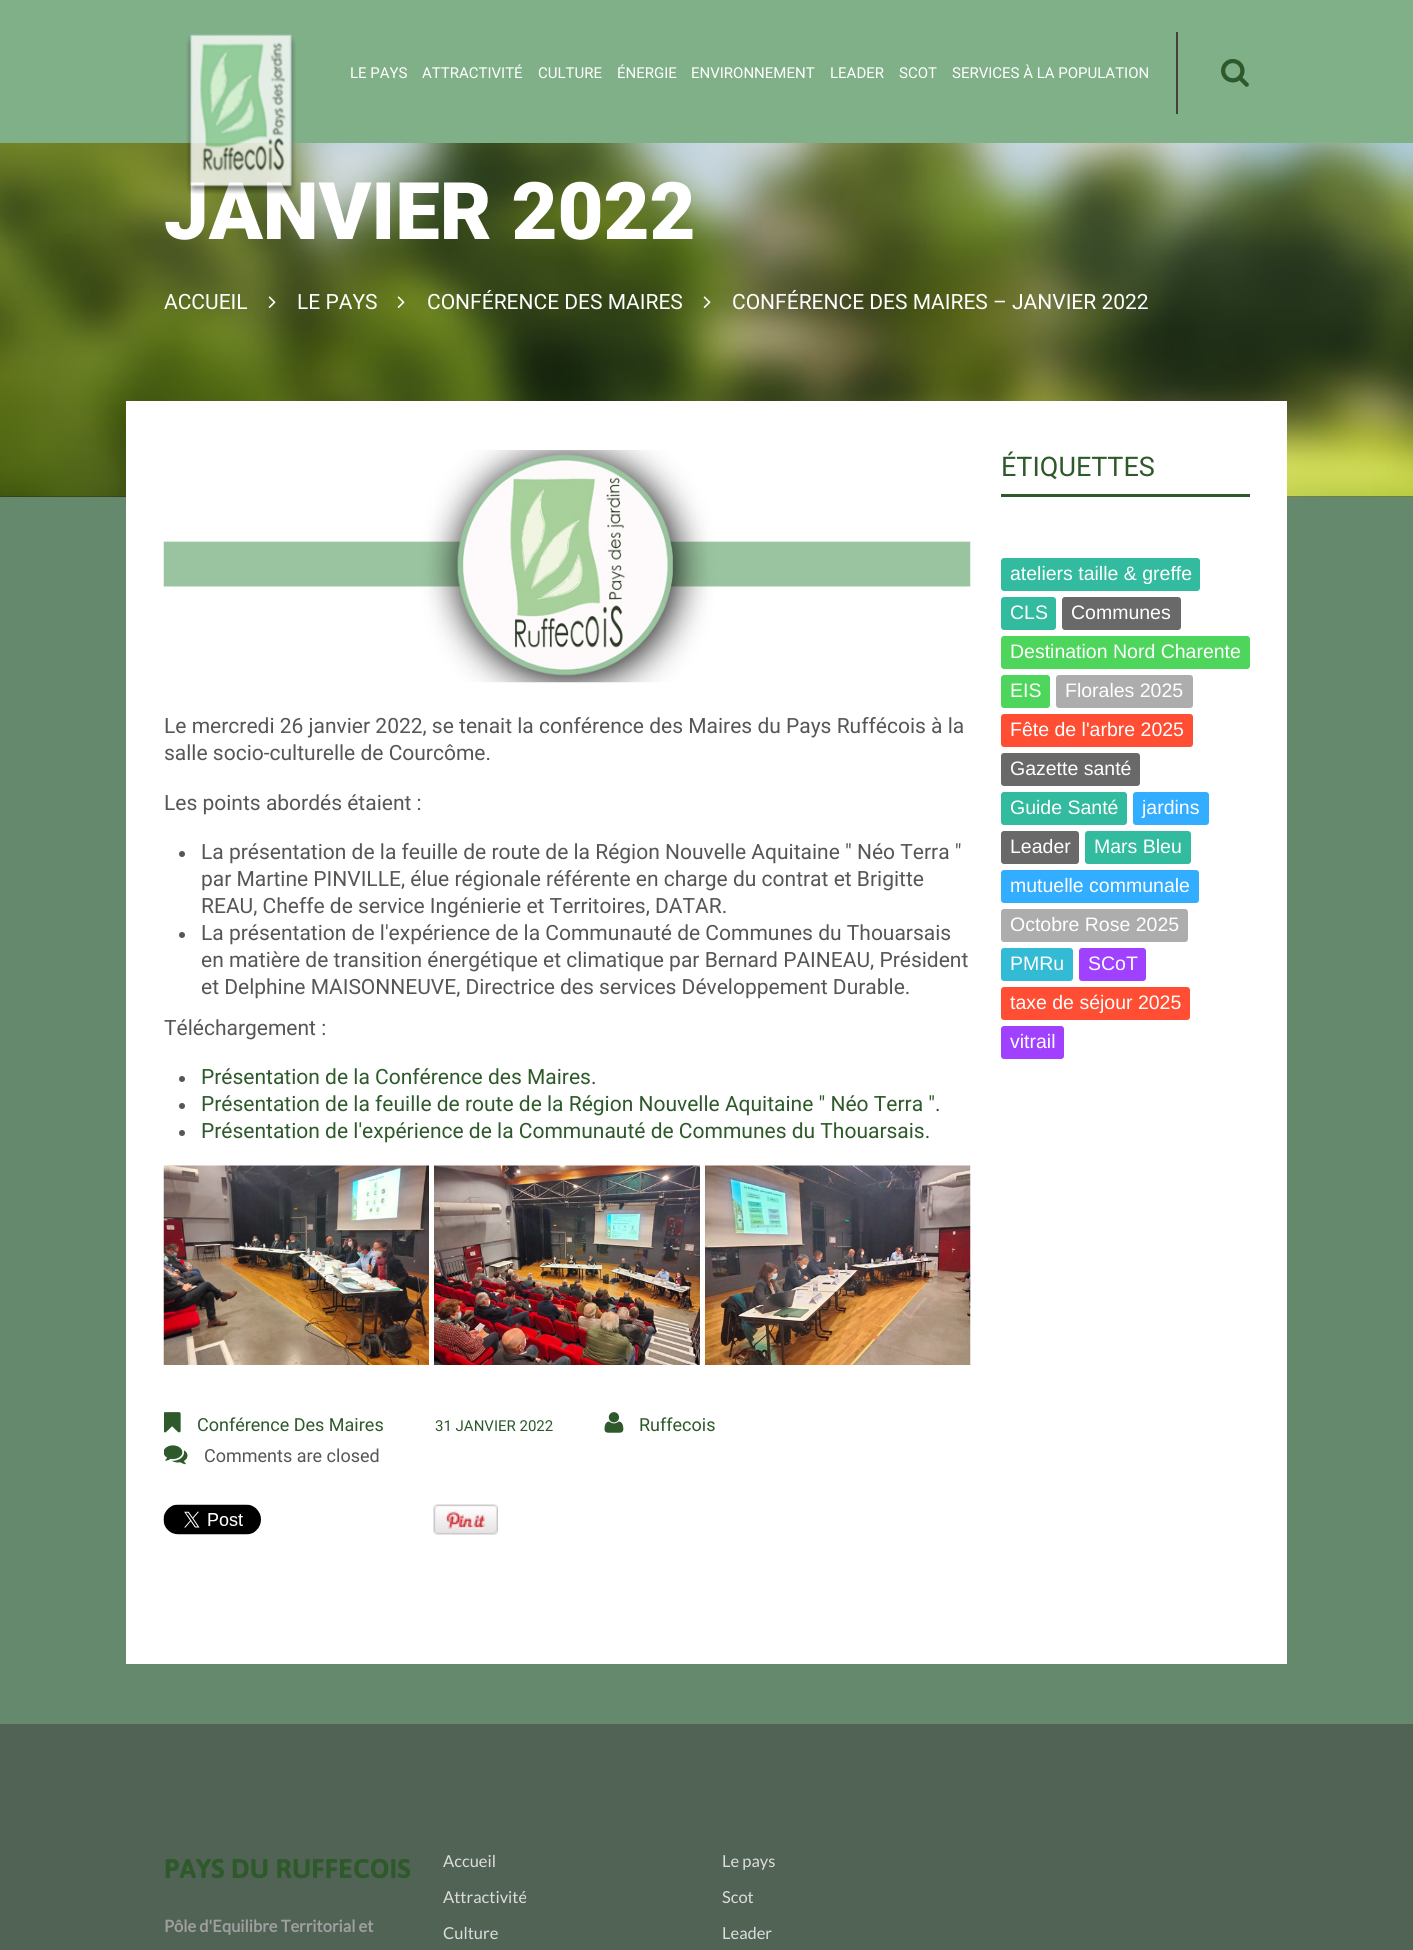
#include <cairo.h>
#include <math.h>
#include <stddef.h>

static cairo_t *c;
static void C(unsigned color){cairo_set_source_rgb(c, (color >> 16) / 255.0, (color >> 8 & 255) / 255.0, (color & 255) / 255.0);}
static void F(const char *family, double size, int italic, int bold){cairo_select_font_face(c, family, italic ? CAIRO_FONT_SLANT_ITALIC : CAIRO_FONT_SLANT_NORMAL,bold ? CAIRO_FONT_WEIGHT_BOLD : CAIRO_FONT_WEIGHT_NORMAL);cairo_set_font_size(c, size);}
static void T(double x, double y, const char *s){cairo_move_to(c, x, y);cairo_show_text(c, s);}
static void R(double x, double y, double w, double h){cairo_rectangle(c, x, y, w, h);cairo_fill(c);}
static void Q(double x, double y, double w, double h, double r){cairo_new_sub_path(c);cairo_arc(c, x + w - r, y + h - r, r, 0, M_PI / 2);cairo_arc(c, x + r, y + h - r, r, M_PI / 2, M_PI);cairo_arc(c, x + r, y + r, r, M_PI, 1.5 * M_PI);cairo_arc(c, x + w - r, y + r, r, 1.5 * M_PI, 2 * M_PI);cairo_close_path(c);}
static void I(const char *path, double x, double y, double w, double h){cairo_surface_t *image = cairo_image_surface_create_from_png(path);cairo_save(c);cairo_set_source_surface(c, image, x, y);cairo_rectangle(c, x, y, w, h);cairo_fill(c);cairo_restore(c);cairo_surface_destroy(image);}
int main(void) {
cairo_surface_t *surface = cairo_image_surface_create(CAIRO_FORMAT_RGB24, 1413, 1950);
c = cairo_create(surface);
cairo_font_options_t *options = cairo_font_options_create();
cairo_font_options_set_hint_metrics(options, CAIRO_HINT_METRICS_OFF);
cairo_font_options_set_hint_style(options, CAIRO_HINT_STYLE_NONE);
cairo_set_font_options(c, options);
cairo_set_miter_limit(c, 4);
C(0x2f2f2f);
cairo_paint(c);
C(0x80b088);
R(0,0,1413,143);
I("3.png",0,143,1413,354);
F("Roboto Black",79.5,0,0);
C(0xffffff);
T(164,239,"JANVIER 2022");
I("1.png",186,34,110,160);
F("Roboto",15,0,0);
T(350,78,"LE PAYS");
T(422,78,"ATTRACTIVITÉ");
T(538,78,"CULTURE");
T(617,78,"ÉNERGIE");
T(691,78,"ENVIRONNEMENT");
T(830,78,"LEADER");
T(899,78,"SCOT");
T(952,78,"SERVICES À LA POPULATION");
C(0x414141);
R(1176,32,2,82);
I("2.png",1221,59,28,28);
F("Roboto",21,0,0);
C(0xffffff);
T(164,309,"ACCUEIL");
I("4.png",268,296,8,12);
T(297,309,"LE PAYS");
I("5.png",397,296,8,12);
T(427,309,"CONFÉRENCE DES MAIRES");
I("6.png",703,296,8,12);
T(732,309,"CONFÉRENCE DES MAIRES – JANVIER 2022");
C(0x65896d);
R(0,497,1413,1227);
C(0xffffff);
R(126,401,1161,1263);
I("7.png",163,450,808,233);
C(0x565656);
T(164,733,"Le mercredi 26 janvier 2022, se tenait la conférence des Maires du Pays Ruffécois à la");
T(164,760,"salle socio-culturelle de Courcôme.");
T(164,810,"Les points abordés étaient :");
cairo_new_path(c);
cairo_arc(c,182,854,3,0,2 * M_PI);
cairo_fill(c);
T(201,859,"La présentation de la feuille de route de la Région Nouvelle Aquitaine \" Néo Terra \"");
T(201,886,"par Martine PINVILLE, élue régionale référente en charge du contrat et Brigitte");
T(201,913,"REAU, Cheffe de service Ingénierie et Territoires, DATAR.");
cairo_new_path(c);
cairo_arc(c,182,935,3,0,2 * M_PI);
cairo_fill(c);
T(201,940,"La présentation de l'expérience de la Communauté de Communes du Thouarsais");
T(201,967,"en matière de transition énergétique et climatique par Bernard PAINEAU, Président");
T(201,994,"et Delphine MAISONNEUVE, Directrice des services Développement Durable.");
T(164,1035,"Téléchargement :");
cairo_new_path(c);
cairo_arc(c,182,1079,3,0,2 * M_PI);
cairo_fill(c);
C(0x2e592a);
T(201,1084,"Présentation de la Conférence des Maires.");
C(0x565656);
cairo_new_path(c);
cairo_arc(c,182,1106,3,0,2 * M_PI);
cairo_fill(c);
C(0x2e592a);
T(201,1111,"Présentation de la feuille de route de la Région Nouvelle Aquitaine \" Néo Terra \".");
C(0x565656);
cairo_new_path(c);
cairo_arc(c,182,1133,3,0,2 * M_PI);
cairo_fill(c);
C(0x2e592a);
T(201,1138,"Présentation de l'expérience de la Communauté de Communes du Thouarsais.");
I("8.png",163,1165,808,200);
I("9.png",164,1412,17,21);
F("Roboto",18,0,0);
T(197,1431,"Conférence Des Maires");
F("Roboto",15,0,0);
T(435,1431,"31 JANVIER 2022");
I("10.png",604,1412,20,21);
F("Roboto",18,0,0);
T(639,1431,"Ruffecois");
I("11.png",164,1445,24,20);
C(0x565656);
T(204,1462,"Comments are closed");
I("12.png",163,1504,98,31);
I("13.png",433,1504,65,31);
C(0x2e592a);
R(1001,494,249,3);
F("Roboto",27,0,0);
T(1001,476,"ÉTIQUETTES");
C(0x33bba0);
Q(1001,558,199,33,3);
cairo_fill(c);
F("Liberation Sans",19.5,0,0);
C(0xffffff);
T(1010,580,"ateliers taille & greffe");
C(0x33bba0);
Q(1001,597,55,33,3);
cairo_fill(c);
C(0xffffff);
T(1010,619,"CLS");
C(0x696969);
Q(1062,597,119,33,3);
cairo_fill(c);
C(0xffffff);
T(1071,619,"Communes");
C(0x4ed65c);
Q(1001,636,249,33,3);
cairo_fill(c);
C(0xffffff);
T(1010,658,"Destination Nord Charente");
C(0x4ed65c);
Q(1001,675,49,33,3);
cairo_fill(c);
C(0xffffff);
T(1010,697,"EIS");
C(0xadadad);
Q(1056,675,137,33,3);
cairo_fill(c);
C(0xffffff);
T(1065,697,"Florales 2025");
C(0xff4e33);
Q(1001,714,192,33,3);
cairo_fill(c);
C(0xffffff);
T(1010,736,"Fête de l'arbre 2025");
C(0x696969);
Q(1001,753,139,33,3);
cairo_fill(c);
C(0xffffff);
T(1010,775,"Gazette santé");
C(0x33bba0);
Q(1001,792,126,33,3);
cairo_fill(c);
C(0xffffff);
T(1010,814,"Guide Santé");
C(0x33adff);
Q(1133,792,76,33,3);
cairo_fill(c);
C(0xffffff);
T(1142,814,"jardins");
C(0x696969);
Q(1001,831,78,33,3);
cairo_fill(c);
C(0xffffff);
T(1010,853,"Leader");
C(0x33bba0);
Q(1085,831,106,33,3);
cairo_fill(c);
C(0xffffff);
T(1094,853,"Mars Bleu");
C(0x33adff);
Q(1001,870,198,33,3);
cairo_fill(c);
C(0xffffff);
T(1010,892,"mutuelle communale");
C(0xadadad);
Q(1001,909,187,33,3);
cairo_fill(c);
C(0xffffff);
T(1010,931,"Octobre Rose 2025");
C(0x33bbd6);
Q(1001,948,72,33,3);
cairo_fill(c);
C(0xffffff);
T(1010,970,"PMRu");
C(0xa041ff);
Q(1079,948,67,33,3);
cairo_fill(c);
C(0xffffff);
T(1088,970,"SCoT");
C(0xff4e33);
Q(1001,987,189,33,3);
cairo_fill(c);
C(0xffffff);
T(1010,1009,"taxe de séjour 2025");
C(0xa041ff);
Q(1001,1026,63,33,3);
cairo_fill(c);
C(0xffffff);
T(1010,1048,"vitrail");
C(0x506354);
R(0,1724,1413,226);
F("Asap",27,0,1);
C(0x2e592a);
T(164,1878,"PAYS DU RUFFECOIS");
F("Lato",16.5,0,1);
C(0xa0a0a0);
T(164,1932,"Pôle d'Equilibre Territorial et");
F("Lato",16.5,0,0);
C(0xdddddd);
T(443,1867,"Accueil");
T(443,1903,"Attractivité");
T(443,1939,"Culture");
T(722,1867,"Le pays");
T(722,1903,"Scot");
T(722,1939,"Leader");
cairo_surface_write_to_png(surface, "o.png");
cairo_font_options_destroy(options);
cairo_destroy(c);
cairo_surface_destroy(surface);
return 0;
}
